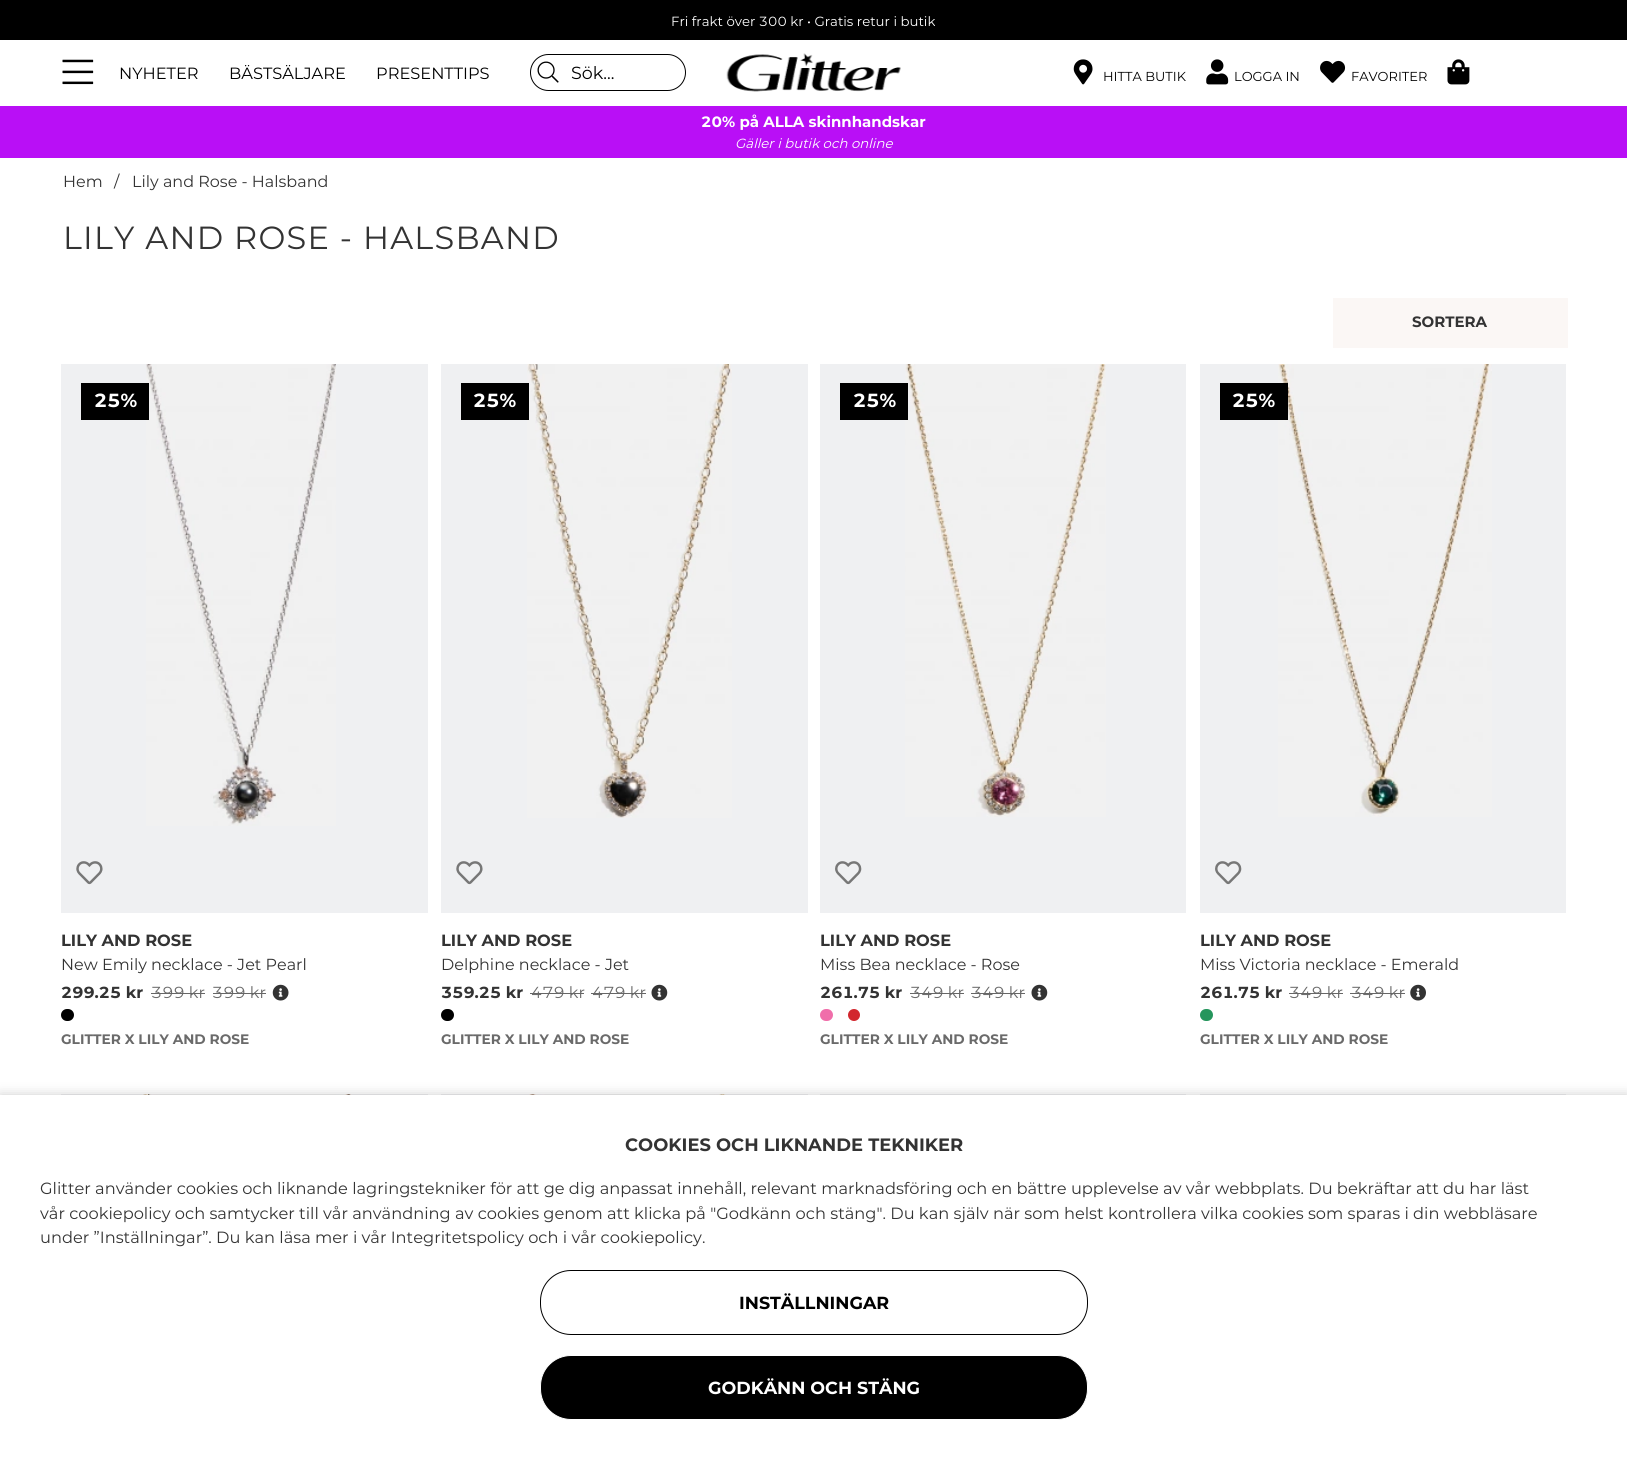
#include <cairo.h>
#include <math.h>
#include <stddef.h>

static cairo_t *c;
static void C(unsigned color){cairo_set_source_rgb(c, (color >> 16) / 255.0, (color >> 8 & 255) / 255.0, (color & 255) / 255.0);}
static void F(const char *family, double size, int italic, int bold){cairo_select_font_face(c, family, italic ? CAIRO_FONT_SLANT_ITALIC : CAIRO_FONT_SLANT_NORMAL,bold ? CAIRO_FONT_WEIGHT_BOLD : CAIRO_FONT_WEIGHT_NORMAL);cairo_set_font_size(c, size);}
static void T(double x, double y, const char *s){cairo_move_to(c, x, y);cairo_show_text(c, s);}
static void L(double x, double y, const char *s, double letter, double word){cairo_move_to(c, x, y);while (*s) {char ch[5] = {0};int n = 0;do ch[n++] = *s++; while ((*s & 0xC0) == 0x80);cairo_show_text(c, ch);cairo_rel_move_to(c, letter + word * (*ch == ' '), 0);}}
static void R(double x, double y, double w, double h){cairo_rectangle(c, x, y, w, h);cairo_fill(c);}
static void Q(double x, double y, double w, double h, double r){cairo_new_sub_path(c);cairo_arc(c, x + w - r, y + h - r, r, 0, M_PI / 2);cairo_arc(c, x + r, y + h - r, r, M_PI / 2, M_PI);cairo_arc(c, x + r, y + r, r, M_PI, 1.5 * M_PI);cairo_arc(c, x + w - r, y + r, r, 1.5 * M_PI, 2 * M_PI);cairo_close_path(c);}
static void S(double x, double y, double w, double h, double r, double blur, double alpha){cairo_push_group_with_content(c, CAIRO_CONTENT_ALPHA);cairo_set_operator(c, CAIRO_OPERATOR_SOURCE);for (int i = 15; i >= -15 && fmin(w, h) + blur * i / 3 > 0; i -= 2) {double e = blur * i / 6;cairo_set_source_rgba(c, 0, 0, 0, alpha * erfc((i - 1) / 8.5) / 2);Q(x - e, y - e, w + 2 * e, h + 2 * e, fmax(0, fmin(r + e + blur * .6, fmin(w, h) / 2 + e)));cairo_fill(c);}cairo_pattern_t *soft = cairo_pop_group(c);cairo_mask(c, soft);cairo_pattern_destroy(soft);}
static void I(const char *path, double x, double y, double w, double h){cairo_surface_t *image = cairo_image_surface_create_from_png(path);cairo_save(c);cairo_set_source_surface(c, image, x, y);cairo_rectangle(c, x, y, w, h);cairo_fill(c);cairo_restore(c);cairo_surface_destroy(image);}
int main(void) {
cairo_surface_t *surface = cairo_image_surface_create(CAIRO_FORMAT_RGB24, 1627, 1459);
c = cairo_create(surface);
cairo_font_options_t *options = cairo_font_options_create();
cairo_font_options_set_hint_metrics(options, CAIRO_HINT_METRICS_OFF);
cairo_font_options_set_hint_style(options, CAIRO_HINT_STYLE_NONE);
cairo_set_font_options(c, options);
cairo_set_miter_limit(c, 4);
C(0xffffff);
cairo_paint(c);
C(0x000000);
R(0,0,1627,40);
F("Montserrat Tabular",13.3,0,0);
C(0xffffff);
T(671,26,"Fri frakt över 300 kr • Gratis retur i butik");
I("1.png",62,59,32,26);
F("Montserrat",16.25,0,0);
C(0x000000);
T(119,79,"NYHETER");
T(229,79,"BÄSTSÄLJARE");
T(376,79,"PRESENTTIPS");
Q(530.5,54.5,155,36,18);
cairo_set_line_width(c,1);
cairo_stroke(c);
I("2.png",537,61,22,22);
F("Montserrat",17.5,0,0);
T(571,79,"Sök...");
I("3.png",726,53,175,39);
I("4.png",1073,59,20,26);
F("Montserrat",13,0,0);
T(1103,81,"HITTA BUTIK");
I("5.png",1206,59,23,26);
T(1234,81,"LOGGA IN");
I("6.png",1320,60,26,23);
T(1351,81,"FAVORITER");
I("7.png",1447,59,23,26);
C(0xb90ff6);
R(0,106,1627,52);
F("Montserrat Tabular",15,0,1);
C(0xffffff);
T(701,127,"20% på ALLA skinnhandskar");
F("Montserrat",13.3,1,0);
T(735,148,"Gäller i butik och online");
F("Montserrat",16,0,0);
C(0x333333);
T(63,187,"Hem");
T(114,187,"/");
T(132,187,"Lily and Rose - Halsband");
F("Montserrat",32,0,0);
L(63,249,"LILY AND ROSE - HALSBAND",1.25,0);
C(0xfbf7f5);
R(1333,298,235,50);
F("Montserrat",15,0,1);
C(0x333333);
T(1412,327,"SORTERA");
C(0xeff0f2);
R(61,364,367,549);
I("8.png",146,364,190,462);
C(0x000000);
R(81,383,68,37);
F("Montserrat Tabular",19,0,1);
C(0xffffff);
T(94,407,"25%");
I("9.png",76,861,27,24);
F("Montserrat",16.25,0,1);
C(0x333333);
T(61,946,"LILY AND ROSE");
F("Montserrat",16,0,0);
T(61,970,"New Emily necklace - Jet Pearl");
F("Montserrat Tabular",16,0,1);
T(61,998,"299.25 kr");
F("Montserrat Tabular",16,0,0);
C(0x6a6a6a);
T(151,998,"399 kr");
C(0x666666);
R(151,993,54,1);
C(0x6a6a6a);
T(212,998,"399 kr");
C(0x666666);
R(213,993,53,1);
I("10.png",272,984,17,17);
C(0x000000);
Q(61,1009,13,12,6);
cairo_fill(c);
F("Montserrat",13.75,0,1);
C(0x6a6a6a);
T(61,1044,"GLITTER X LILY AND ROSE");
C(0xeff0f2);
R(441,364,367,549);
I("11.png",527,364,205,454);
C(0x000000);
R(461,383,68,37);
F("Montserrat Tabular",19,0,1);
C(0xffffff);
T(473,407,"25%");
I("9.png",456,861,27,24);
F("Montserrat",16.25,0,1);
C(0x333333);
T(441,946,"LILY AND ROSE");
F("Montserrat",16,0,0);
T(441,970,"Delphine necklace - Jet");
F("Montserrat Tabular",16,0,1);
T(441,998,"359.25 kr");
F("Montserrat Tabular",16,0,0);
C(0x6a6a6a);
T(531,998,"479 kr");
C(0x666666);
R(530,993,54,1);
C(0x6a6a6a);
T(592,998,"479 kr");
C(0x666666);
R(591,993,55,1);
I("12.png",651,984,17,17);
C(0x000000);
Q(441,1009,13,12,6);
cairo_fill(c);
F("Montserrat",13.75,0,1);
C(0x6a6a6a);
T(441,1044,"GLITTER X LILY AND ROSE");
C(0xeff0f2);
R(820,364,366,549);
I("13.png",905,364,201,453);
C(0x000000);
R(840,383,68,37);
F("Montserrat Tabular",19,0,1);
C(0xffffff);
T(853,407,"25%");
I("14.png",835,861,27,24);
F("Montserrat",16.25,0,1);
C(0x333333);
T(820,946,"LILY AND ROSE");
F("Montserrat",16,0,0);
T(820,970,"Miss Bea necklace - Rose");
F("Montserrat Tabular",16,0,1);
T(820,998,"261.75 kr");
F("Montserrat Tabular",16,0,0);
C(0x6a6a6a);
T(910,998,"349 kr");
C(0x666666);
R(910,993,54,1);
C(0x6a6a6a);
T(971,998,"349 kr");
C(0x666666);
R(971,993,54,1);
I("12.png",1031,984,17,17);
C(0xf06eaa);
Q(820,1009,13,12,6);
cairo_fill(c);
C(0xd2272e);
cairo_arc(c,854,1015,6,0,2 * M_PI);
cairo_fill(c);
F("Montserrat",13.75,0,1);
C(0x6a6a6a);
T(820,1044,"GLITTER X LILY AND ROSE");
C(0xeff0f2);
R(1200,364,366,549);
I("15.png",1278,364,214,453);
C(0x000000);
R(1220,383,68,37);
F("Montserrat Tabular",19,0,1);
C(0xffffff);
T(1232,407,"25%");
I("14.png",1215,861,27,24);
F("Montserrat",16.25,0,1);
C(0x333333);
T(1200,946,"LILY AND ROSE");
F("Montserrat",16,0,0);
T(1200,970,"Miss Victoria necklace - Emerald");
F("Montserrat Tabular",16,0,1);
T(1200,998,"261.75 kr");
F("Montserrat Tabular",16,0,0);
C(0x6a6a6a);
T(1289,998,"349 kr");
C(0x666666);
R(1289,993,54,1);
C(0x6a6a6a);
T(1351,998,"349 kr");
C(0x666666);
R(1350,993,55,1);
I("16.png",1410,984,16,17);
C(0x25955c);
Q(1200,1009,13,12,6);
cairo_fill(c);
F("Montserrat",13.75,0,1);
C(0x6a6a6a);
T(1200,1044,"GLITTER X LILY AND ROSE");
C(0xeff0f2);
R(61,1094,367,1);
I("17.png",142,1094,210,1);
R(441,1094,367,1);
I("18.png",529,1094,197,1);
R(820,1094,366,1);
R(1200,1094,366,1);
C(0x000000);
S(0,1095,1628,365,0,6,.2);
C(0xffffff);
R(0,1095,1627,364);
F("Montserrat",17.9,0,1);
C(0x333333);
T(625,1151,"COOKIES OCH LIKNANDE TEKNIKER");
F("Montserrat",16.25,0,0);
T(40,1194,"Glitter använder cookies och liknande lagringstekniker för att ge dig anpassat innehåll, relevant marknadsföring och en bättre upplevelse av vår webbplats. Du bekräftar att du har läst");
T(40,1219,"vår cookiepolicy och samtycker till vår användning av cookies genom att klicka på \"Godkänn och stäng\". Du kan själv när som helst kontrollera vilka cookies som sparas i din webbläsare");
T(40,1243,"under ”Inställningar”. Du kan läsa mer i vår Integritetspolicy och i vår cookiepolicy.");
Q(540.5,1270.5,547,64,30.5);
C(0x000000);
cairo_stroke(c);
F("Montserrat",17.5,0,1);
T(739,1309,"INSTÄLLNINGAR");
Q(540.5,1355.5,547,64,30.5);
cairo_fill_preserve(c);
C(0xffffff);
cairo_stroke(c);
T(708,1394,"GODKÄNN OCH STÄNG");
cairo_surface_write_to_png(surface, "o.png");
cairo_font_options_destroy(options);
cairo_destroy(c);
cairo_surface_destroy(surface);
return 0;
}
